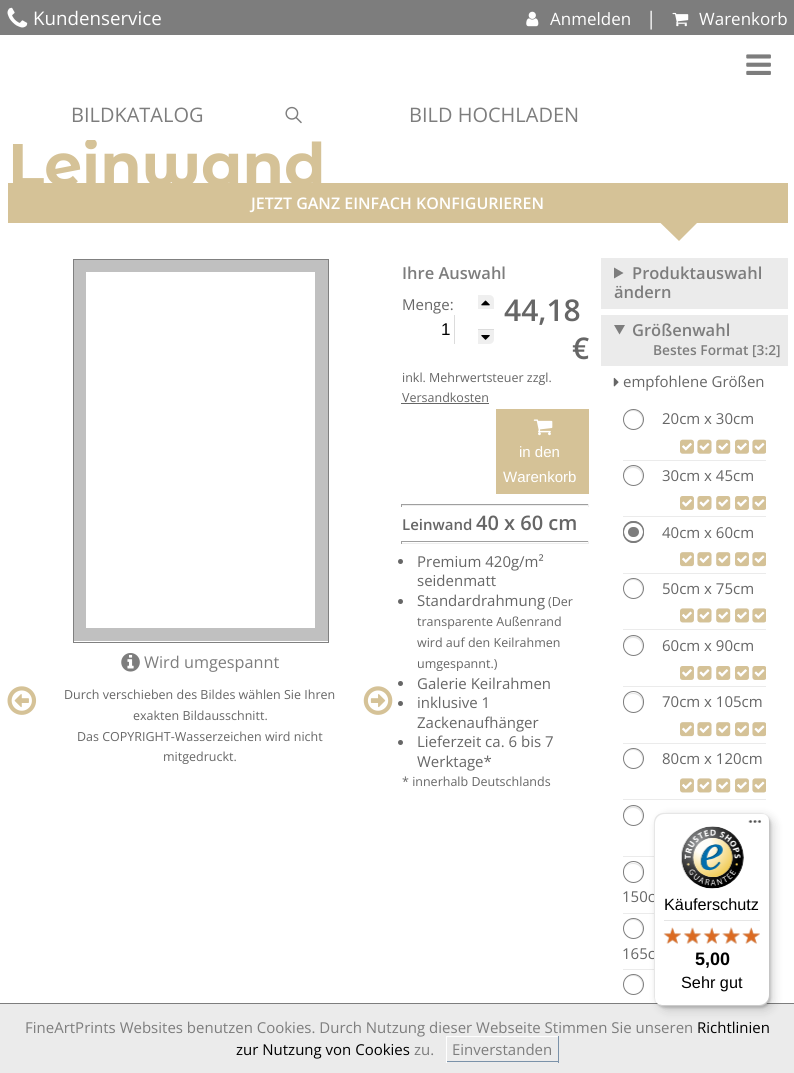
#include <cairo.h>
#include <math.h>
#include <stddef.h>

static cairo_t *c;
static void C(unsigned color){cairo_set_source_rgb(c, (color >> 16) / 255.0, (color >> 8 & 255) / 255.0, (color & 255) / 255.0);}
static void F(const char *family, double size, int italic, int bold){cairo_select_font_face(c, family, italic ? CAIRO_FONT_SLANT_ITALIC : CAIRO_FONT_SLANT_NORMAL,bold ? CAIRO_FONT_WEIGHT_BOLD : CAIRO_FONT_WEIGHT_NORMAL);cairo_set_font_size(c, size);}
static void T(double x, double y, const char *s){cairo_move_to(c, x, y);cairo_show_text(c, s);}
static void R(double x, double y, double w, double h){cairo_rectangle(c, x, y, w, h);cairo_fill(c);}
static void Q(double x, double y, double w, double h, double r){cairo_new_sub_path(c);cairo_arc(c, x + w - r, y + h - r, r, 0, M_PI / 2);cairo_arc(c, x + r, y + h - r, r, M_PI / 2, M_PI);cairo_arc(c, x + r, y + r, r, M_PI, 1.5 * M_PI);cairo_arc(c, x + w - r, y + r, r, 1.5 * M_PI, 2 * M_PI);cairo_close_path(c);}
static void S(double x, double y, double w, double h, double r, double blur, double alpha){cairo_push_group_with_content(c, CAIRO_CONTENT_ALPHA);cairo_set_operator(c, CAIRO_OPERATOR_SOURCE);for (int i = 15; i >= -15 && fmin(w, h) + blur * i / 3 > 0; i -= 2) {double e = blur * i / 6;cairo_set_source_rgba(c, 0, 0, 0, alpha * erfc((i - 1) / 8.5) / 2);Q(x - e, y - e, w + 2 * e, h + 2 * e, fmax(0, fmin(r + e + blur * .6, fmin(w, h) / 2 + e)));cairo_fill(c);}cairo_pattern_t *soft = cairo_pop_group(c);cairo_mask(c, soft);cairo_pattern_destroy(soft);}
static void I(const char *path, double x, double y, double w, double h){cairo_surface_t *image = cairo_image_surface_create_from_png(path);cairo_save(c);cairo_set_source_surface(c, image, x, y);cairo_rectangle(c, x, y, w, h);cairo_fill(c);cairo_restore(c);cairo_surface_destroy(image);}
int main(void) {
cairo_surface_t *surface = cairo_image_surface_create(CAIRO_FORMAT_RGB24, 794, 1073);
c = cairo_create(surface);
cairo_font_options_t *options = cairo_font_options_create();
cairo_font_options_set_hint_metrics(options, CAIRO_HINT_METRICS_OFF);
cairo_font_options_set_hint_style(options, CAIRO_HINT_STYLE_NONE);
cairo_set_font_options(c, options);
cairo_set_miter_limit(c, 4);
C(0xffffff);
cairo_paint(c);
C(0x7d7d7d);
R(0,0,794,35);
C(0xd5c297);
R(8,183,780,40);
F("Montserrat Alternates",60,0,1);
T(8,186,"Leinwand");
C(0xffffff);
R(87,138,8,2);
I("1.png",7,7,21,21);
F("Open Sans",18.75,0,0);
T(33,25,"Kundenservice");
I("2.png",526,11,13,16);
F("Open Sans",17,0,0);
T(550,25,"Anmelden");
F("Open Sans",18.75,0,0);
T(646,25,"|");
I("3.png",672,12,17,15);
F("Open Sans",17,0,0);
T(699,25,"Warenkorb");
I("4.png",746,54,25,21);
F("Open Sans",20,0,0);
C(0x7d7d7d);
T(71,122,"BILDKATALOG");
I("5.png",285,106,17,18);
T(409,122,"BILD HOCHLADEN");
F("Open Sans SemiBold",16,0,0);
C(0xffffff);
T(251,209,"JETZT GANZ EINFACH KONFIGURIEREN");
C(0xd5c297);
cairo_new_path(c);
cairo_move_to(c,660,222.5);
cairo_line_to(c,697.5,222.5);
cairo_line_to(c,679,241);
cairo_close_path(c);
cairo_fill(c);
cairo_rectangle(c,73.5,259.5,255,383);
C(0x808080);
cairo_set_line_width(c,1);
cairo_stroke(c);
cairo_save(c);
cairo_rectangle(c,74,260,254,381);
cairo_clip(c);
cairo_rectangle(c,79.5,265.5,242,369);
C(0xc0c0c0);
cairo_set_line_width(c,13);
cairo_stroke(c);
cairo_restore(c);
I("6.png",121,653,19,19);
F("Open Sans",16.25,0,0);
C(0x7d7d7d);
T(144,668,"Wird umgespannt");
I("7.png",7,686,30,29);
F("Open Sans",12.5,0,0);
C(0x666666);
T(64,699,"Durch verschieben des Bildes wählen Sie Ihren");
T(133,720,"exakten Bildausschnitt.");
T(77,741,"Das COPYRIGHT-Wasserzeichen wird nicht");
T(163,761,"mitgedruckt.");
I("8.png",363,686,30,29);
F("Open Sans SemiBold",16.5,0,0);
C(0x7d7d7d);
T(402,279,"Ihre Auswahl");
F("Open Sans",15,0,0);
C(0x666666);
T(402,310,"Menge:");
C(0xefefef);
cairo_new_path(c);
cairo_move_to(c,478,295);
cairo_line_to(c,489,295);
cairo_curve_to(c,492,295,494,297,494,300);
cairo_line_to(c,494,309);
cairo_line_to(c,478,309);
cairo_close_path(c);
cairo_fill(c);
I("9.png",481,300,9,6);
C(0xdcdcdc);
R(454,315,1,29);
F("Liberation Sans",17,0,0);
C(0x000000);
T(441,335,"1");
C(0xefefef);
cairo_new_path(c);
cairo_move_to(c,478,329);
cairo_line_to(c,494,329);
cairo_line_to(c,494,339);
cairo_curve_to(c,494,342,492,344,489,344);
cairo_line_to(c,478,344);
cairo_close_path(c);
cairo_fill(c);
C(0xdcdcdc);
R(478,329,16,1);
I("10.png",481,335,9,5);
F("Open Sans SemiBold",30,0,0);
C(0x666666);
T(504,321,"44,18");
T(572,359,"€");
F("Open Sans",12.5,0,0);
T(402,382,"inkl. Mehrwertsteuer zzgl.");
T(402,402,"Versandkosten");
R(401,403,88,1);
C(0xd5c297);
R(496,409,93,85);
I("11.png",533,419,20,17);
F("Liberation Sans",15,0,0);
C(0xffffff);
T(519,457,"in den");
T(503,482,"Warenkorb");
C(0x9f9f9f);
R(401,504,188,1);
C(0xeeeeee);
R(588,504,1,3);
R(401,505,188,1);
C(0x9f9f9f);
R(401,504,1,3);
F("Open Sans SemiBold",15,0,0);
C(0x666666);
T(402,530,"Leinwand");
F("Open Sans SemiBold",20,0,0);
T(476,530,"40 x 60 cm");
C(0x9f9f9f);
R(401,541,188,1);
C(0xeeeeee);
R(588,541,1,3);
R(401,543,188,1);
C(0x9f9f9f);
R(401,541,1,3);
C(0x666666);
cairo_new_path(c);
cairo_arc(c,400.5,561.5,2.5,0,2 * M_PI);
cairo_fill(c);
F("Open Sans",15,0,0);
T(417,567,"Premium 420g/m²");
T(417,586,"seidenmatt");
cairo_new_path(c);
cairo_arc(c,400.5,601.5,2.5,0,2 * M_PI);
cairo_fill(c);
T(417,606,"Standardrahmung");
F("Open Sans",12.5,0,0);
T(548,606,"(Der");
T(417,626,"transparente Außenrand");
T(417,647,"wird auf den Keilrahmen");
T(417,668,"umgespannt.)");
cairo_new_path(c);
cairo_arc(c,400.5,683.5,2.5,0,2 * M_PI);
cairo_fill(c);
F("Open Sans",15,0,0);
T(417,689,"Galerie Keilrahmen");
cairo_new_path(c);
cairo_arc(c,400.5,703.5,2.5,0,2 * M_PI);
cairo_fill(c);
T(417,708,"inklusive 1");
T(417,728,"Zackenaufhänger");
cairo_new_path(c);
cairo_arc(c,400.5,742.5,2.5,0,2 * M_PI);
cairo_fill(c);
T(417,747,"Lieferzeit ca. 6 bis 7");
T(417,767,"Werktage*");
F("Open Sans",12.5,0,0);
T(402,786,"* innerhalb Deutschlands");
C(0xebebeb);
R(601,258,187,51);
C(0x7d7d7d);
cairo_new_path(c);
cairo_move_to(c,614,267.5);
cairo_line_to(c,623.5,273);
cairo_line_to(c,614,278.5);
cairo_close_path(c);
cairo_fill(c);
F("Open Sans SemiBold",16.5,0,0);
T(632,279,"Produktauswahl");
T(614,298,"ändern");
C(0xebebeb);
R(601,315,187,51);
C(0x7d7d7d);
cairo_new_path(c);
cairo_move_to(c,614,325);
cairo_line_to(c,625,325);
cairo_line_to(c,619.5,334.5);
cairo_close_path(c);
cairo_fill(c);
T(632,336,"Größenwahl");
F("Open Sans SemiBold",13.75,0,0);
T(653,355,"Bestes Format [3:2]");
I("12.png",613,377,6,10);
F("Open Sans",15,0,0);
C(0x666666);
T(623,387,"empfohlene Größen");
C(0xebebeb);
R(623,460,143,1);
C(0xe6e6e6);
cairo_new_path(c);
cairo_move_to(c,633,411);
cairo_curve_to(c,641.5,411,644,420,640.5,426);
cairo_curve_to(c,648.5,417,635.5,404,627,413);
cairo_curve_to(c,625,414.5,624,417.5,624,420);
cairo_curve_to(c,624,415.5,627,411,633,411);
cairo_close_path(c);
cairo_fill(c);
cairo_arc(c,633.5,419.5,10,0,2 * M_PI);
C(0x7d7d7d);
cairo_stroke(c);
C(0x666666);
T(662,424,"20cm x 30cm");
I("13.png",680,439,14,15);
I("14.png",680,439,14,15);
I("18.png",697,439,15,15);
I("15.png",697,439,15,15);
I("19.png",716,439,14,15);
I("16.png",716,439,15,15);
I("13.png",735,439,14,15);
I("14.png",735,439,14,15);
I("20.png",752,439,14,15);
I("17.png",752,439,14,15);
C(0xebebeb);
R(623,516,143,1);
C(0xe6e6e6);
cairo_new_path(c);
cairo_move_to(c,633,468);
cairo_curve_to(c,641,468,643.5,476,641,481.5);
cairo_curve_to(c,648,472.5,635.5,460.5,627,469);
cairo_curve_to(c,625,470.5,624,473.5,624,476);
cairo_curve_to(c,624.5,472,627.5,468,633,468);
cairo_close_path(c);
cairo_fill(c);
cairo_arc(c,633.5,475.5,10,0,2 * M_PI);
C(0x7d7d7d);
cairo_stroke(c);
C(0x666666);
T(662,481,"30cm x 45cm");
I("21.png",680,496,14,14);
I("22.png",680,496,14,14);
I("26.png",697,496,15,14);
I("23.png",697,496,15,14);
I("27.png",716,496,14,14);
I("24.png",716,496,15,14);
I("21.png",735,496,14,14);
I("22.png",735,496,14,14);
I("28.png",752,496,14,14);
I("25.png",752,496,14,14);
C(0xebebeb);
R(623,573,143,1);
C(0x7d7d7d);
Q(623,521,21,22,10.5);
cairo_fill(c);
Q(626,525,15,14,7);
C(0xffffff);
cairo_set_line_width(c,4);
cairo_stroke(c);
Q(623.5,521.5,20,21,10);
C(0x7d7d7d);
cairo_set_line_width(c,1);
cairo_stroke(c);
C(0x666666);
T(662,538,"40cm x 60cm");
I("29.png",680,552,14,14);
I("30.png",680,552,14,15);
I("34.png",697,552,15,14);
I("31.png",697,552,15,15);
I("35.png",716,552,14,14);
I("32.png",716,552,15,15);
I("29.png",735,552,14,14);
I("30.png",735,552,14,15);
I("36.png",752,552,14,14);
I("33.png",752,552,14,15);
C(0xebebeb);
R(623,629,143,1);
C(0xe6e6e6);
cairo_new_path(c);
cairo_move_to(c,633,580);
cairo_curve_to(c,641.5,580,644,589,640.5,595);
cairo_curve_to(c,648.5,586,635.5,573,627,582);
cairo_curve_to(c,625,583.5,624,586.5,624,589);
cairo_curve_to(c,624,584.5,627,580,633,580);
cairo_close_path(c);
cairo_fill(c);
cairo_arc(c,633.5,588.5,10,0,2 * M_PI);
C(0x7d7d7d);
cairo_stroke(c);
C(0x666666);
T(662,594,"50cm x 75cm");
I("37.png",680,608,14,15);
I("38.png",680,608,14,15);
I("42.png",697,608,15,15);
I("39.png",697,608,15,15);
I("43.png",716,608,14,15);
I("40.png",716,608,15,15);
I("37.png",735,608,14,15);
I("38.png",735,608,14,15);
I("44.png",752,608,14,15);
I("41.png",752,608,14,15);
C(0xebebeb);
R(623,686,143,1);
C(0xe6e6e6);
cairo_new_path(c);
cairo_move_to(c,633,638);
cairo_curve_to(c,641,638,643.5,646,641,651.5);
cairo_curve_to(c,648,642.5,635.5,630.5,627,639);
cairo_curve_to(c,625,640.5,624,643.5,624,646);
cairo_curve_to(c,624.5,642,627.5,638,633,638);
cairo_close_path(c);
cairo_fill(c);
cairo_arc(c,633.5,645.5,10,0,2 * M_PI);
C(0x7d7d7d);
cairo_stroke(c);
C(0x666666);
T(662,651,"60cm x 90cm");
I("21.png",680,666,14,14);
I("22.png",680,666,14,14);
I("26.png",697,666,15,14);
I("23.png",697,666,15,14);
I("27.png",716,666,14,14);
I("24.png",716,666,15,14);
I("21.png",735,666,14,14);
I("22.png",735,666,14,14);
I("28.png",752,666,14,14);
I("25.png",752,666,14,14);
C(0xebebeb);
R(623,743,143,1);
C(0xe6e6e6);
cairo_new_path(c);
cairo_move_to(c,633,694);
cairo_curve_to(c,641.5,694,644,703,640.5,708.5);
cairo_curve_to(c,646.5,702,641.5,692.5,633,693);
cairo_curve_to(c,630.5,693,628.5,694,626.5,695.5);
cairo_curve_to(c,625,697.5,624,700,624,702.5);
cairo_curve_to(c,624,698,627,694,633,694);
cairo_close_path(c);
cairo_fill(c);
Q(623.5,691.5,20,21,10);
C(0x7d7d7d);
cairo_stroke(c);
C(0x666666);
T(662,707,"70cm x 105cm");
I("29.png",680,722,14,14);
I("30.png",680,722,14,15);
I("34.png",697,722,15,14);
I("31.png",697,722,15,15);
I("35.png",716,722,14,14);
I("32.png",716,722,15,15);
I("29.png",735,722,14,14);
I("30.png",735,722,14,15);
I("36.png",752,722,14,14);
I("33.png",752,722,14,15);
C(0xebebeb);
R(623,799,143,1);
C(0xe6e6e6);
cairo_new_path(c);
cairo_move_to(c,633,750);
cairo_curve_to(c,641.5,750,644,759,640.5,765);
cairo_curve_to(c,648.5,756,635.5,743,627,752);
cairo_curve_to(c,625,753.5,624,756.5,624,759);
cairo_curve_to(c,624,754.5,627,750,633,750);
cairo_close_path(c);
cairo_fill(c);
cairo_arc(c,633.5,758.5,10,0,2 * M_PI);
C(0x7d7d7d);
cairo_stroke(c);
C(0x666666);
T(662,764,"80cm x 120cm");
I("37.png",680,778,14,15);
I("38.png",680,778,14,15);
I("42.png",697,778,15,15);
I("39.png",697,778,15,15);
I("43.png",716,778,14,15);
I("40.png",716,778,15,15);
I("37.png",735,778,14,15);
I("38.png",735,778,14,15);
I("44.png",752,778,14,15);
I("41.png",752,778,14,15);
C(0xebebeb);
R(623,856,31,1);
C(0xe6e6e6);
cairo_new_path(c);
cairo_move_to(c,633,808);
cairo_curve_to(c,641,808,643.5,816,641,821.5);
cairo_curve_to(c,648,812.5,635.5,800.5,627,809);
cairo_curve_to(c,625,810.5,624,813.5,624,816);
cairo_curve_to(c,624.5,812,627.5,808,633,808);
cairo_close_path(c);
cairo_fill(c);
cairo_arc(c,633.5,815.5,10,0,2 * M_PI);
C(0x7d7d7d);
cairo_stroke(c);
C(0xebebeb);
R(623,913,31,1);
C(0xe6e6e6);
cairo_new_path(c);
cairo_move_to(c,633,864);
cairo_curve_to(c,641.5,864,644,873,640.5,878.5);
cairo_curve_to(c,646.5,872,641.5,862.5,633,863);
cairo_curve_to(c,630.5,863,628.5,864,626.5,865.5);
cairo_curve_to(c,625,867.5,624,870,624,872.5);
cairo_curve_to(c,624,868,627,864,633,864);
cairo_close_path(c);
cairo_fill(c);
Q(623.5,861.5,20,21,10);
C(0x7d7d7d);
cairo_stroke(c);
C(0x666666);
T(622,902,"150c");
C(0xebebeb);
R(623,969,31,1);
C(0xe6e6e6);
cairo_new_path(c);
cairo_move_to(c,633,920);
cairo_curve_to(c,641.5,920,644,929,640.5,935);
cairo_curve_to(c,648.5,926,635.5,913,627,922);
cairo_curve_to(c,625,923.5,624,926.5,624,929);
cairo_curve_to(c,624,924.5,627,920,633,920);
cairo_close_path(c);
cairo_fill(c);
cairo_arc(c,633.5,928.5,10,0,2 * M_PI);
C(0x7d7d7d);
cairo_stroke(c);
C(0x666666);
T(622,959,"165c");
C(0xe6e6e6);
cairo_new_path(c);
cairo_move_to(c,633,976);
cairo_curve_to(c,641.5,976,644,985,640.5,991);
cairo_curve_to(c,648.5,982,635.5,969,627,978);
cairo_curve_to(c,625,979.5,624,982.5,624,985);
cairo_curve_to(c,624,980.5,627,976,633,976);
cairo_close_path(c);
cairo_fill(c);
cairo_arc(c,633.5,984.5,10,0,2 * M_PI);
C(0x7d7d7d);
cairo_stroke(c);
C(0xebebeb);
R(0,1004,794,69);
C(0x7d7d7d);
T(25,1033,"FineArtPrints Websites benutzen Cookies. Durch Nutzung dieser Webseite Stimmen Sie unseren");
C(0xffffff);
R(446,1036,113,1);
C(0x7b92a9);
R(558,1036,1,27);
R(446,1061,113,1);
C(0xffffff);
R(446,1036,1,27);
cairo_rectangle(c,-.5,1003.5,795,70);
C(0x7d7d7d);
cairo_stroke(c);
C(0x000000);
S(658,816,116,194,10,5,.15);
S(655,814,116,194,10,1,.15);
C(0xffffff);
Q(654,813,116,193,10);
cairo_fill(c);
cairo_set_source_rgba(c,0,0,0,0.1);
cairo_new_path(c);
cairo_move_to(c,665,814);
cairo_line_to(c,761,814);
cairo_curve_to(c,763,814,765,814,766,815);
cairo_curve_to(c,765,814,762,813,760,813);
cairo_line_to(c,664,813);
cairo_curve_to(c,658,813,654,817,654,823);
cairo_line_to(c,654,996);
cairo_curve_to(c,654,998,655,1000,656,1002);
cairo_line_to(c,655,998);
cairo_line_to(c,655,824);
cairo_curve_to(c,655,818,659,814,665,814);
cairo_close_path(c);
cairo_fill(c);
cairo_set_source_rgba(c,0,0,0,0.2);
cairo_new_path(c);
cairo_move_to(c,658,1004);
cairo_curve_to(c,660,1005,662,1006,664,1006);
cairo_line_to(c,760,1006);
cairo_curve_to(c,766,1006,770,1002,770,996);
cairo_line_to(c,770,823);
cairo_curve_to(c,770,821,769,819,768,817);
cairo_curve_to(c,769,818,769,820,769,821);
cairo_line_to(c,769,995);
cairo_curve_to(c,769,1001,764,1005,759,1005);
cairo_line_to(c,662,1005);
cairo_close_path(c);
cairo_fill(c);
cairo_set_source_rgba(c,0.196,0.196,0.196,0.2);
cairo_new_path(c);
cairo_move_to(c,759,1006);
cairo_line_to(c,760,1006);
cairo_curve_to(c,766,1006,770,1002,770,996);
cairo_line_to(c,770,823);
cairo_curve_to(c,770,821,769,818,768,817);
cairo_curve_to(c,769,818,769,820,769,822);
cairo_line_to(c,769,996);
cairo_curve_to(c,769,1001,765,1006,759,1006);
cairo_close_path(c);
cairo_fill(c);
cairo_set_source_rgba(c,1,1,1,0.3);
cairo_new_path(c);
cairo_move_to(c,759,1006);
cairo_line_to(c,760,1006);
cairo_curve_to(c,766,1006,770,1002,770,996);
cairo_line_to(c,770,823);
cairo_curve_to(c,770,821,769,818,768,817);
cairo_curve_to(c,769,818,769,820,769,822);
cairo_line_to(c,769,996);
cairo_curve_to(c,769,1001,765,1006,759,1006);
cairo_close_path(c);
cairo_fill(c);
I("45.png",748,820,14,3);
I("46.png",681,826,63,63);
F("Liberation Sans",16.25,0,0);
C(0x000000);
T(664,910,"Käuferschutz");
C(0xe5e5e5);
R(664,920,96,1);
I("52.png",664,928,17,16);
I("47.png",663,927,18,17);
I("53.png",684,928,17,16);
I("48.png",683,927,19,17);
I("54.png",704,928,16,16);
I("49.png",703,927,17,17);
I("55.png",722,927,18,17);
I("50.png",722,927,18,17);
I("56.png",742,928,18,16);
I("51.png",742,927,18,17);
F("Liberation Sans",18,0,1);
C(0x000000);
T(695,965,"5,00");
F("Liberation Sans",16.25,0,0);
T(681,988,"Sehr gut");
F("Open Sans",15,0,0);
T(697,1033,"Richtlinien");
T(236,1055,"zur Nutzung von Cookies");
C(0x7d7d7d);
T(414,1055,"zu.");
T(452,1055,"Einverstanden");
cairo_surface_write_to_png(surface, "o.png");
cairo_font_options_destroy(options);
cairo_destroy(c);
cairo_surface_destroy(surface);
return 0;
}
